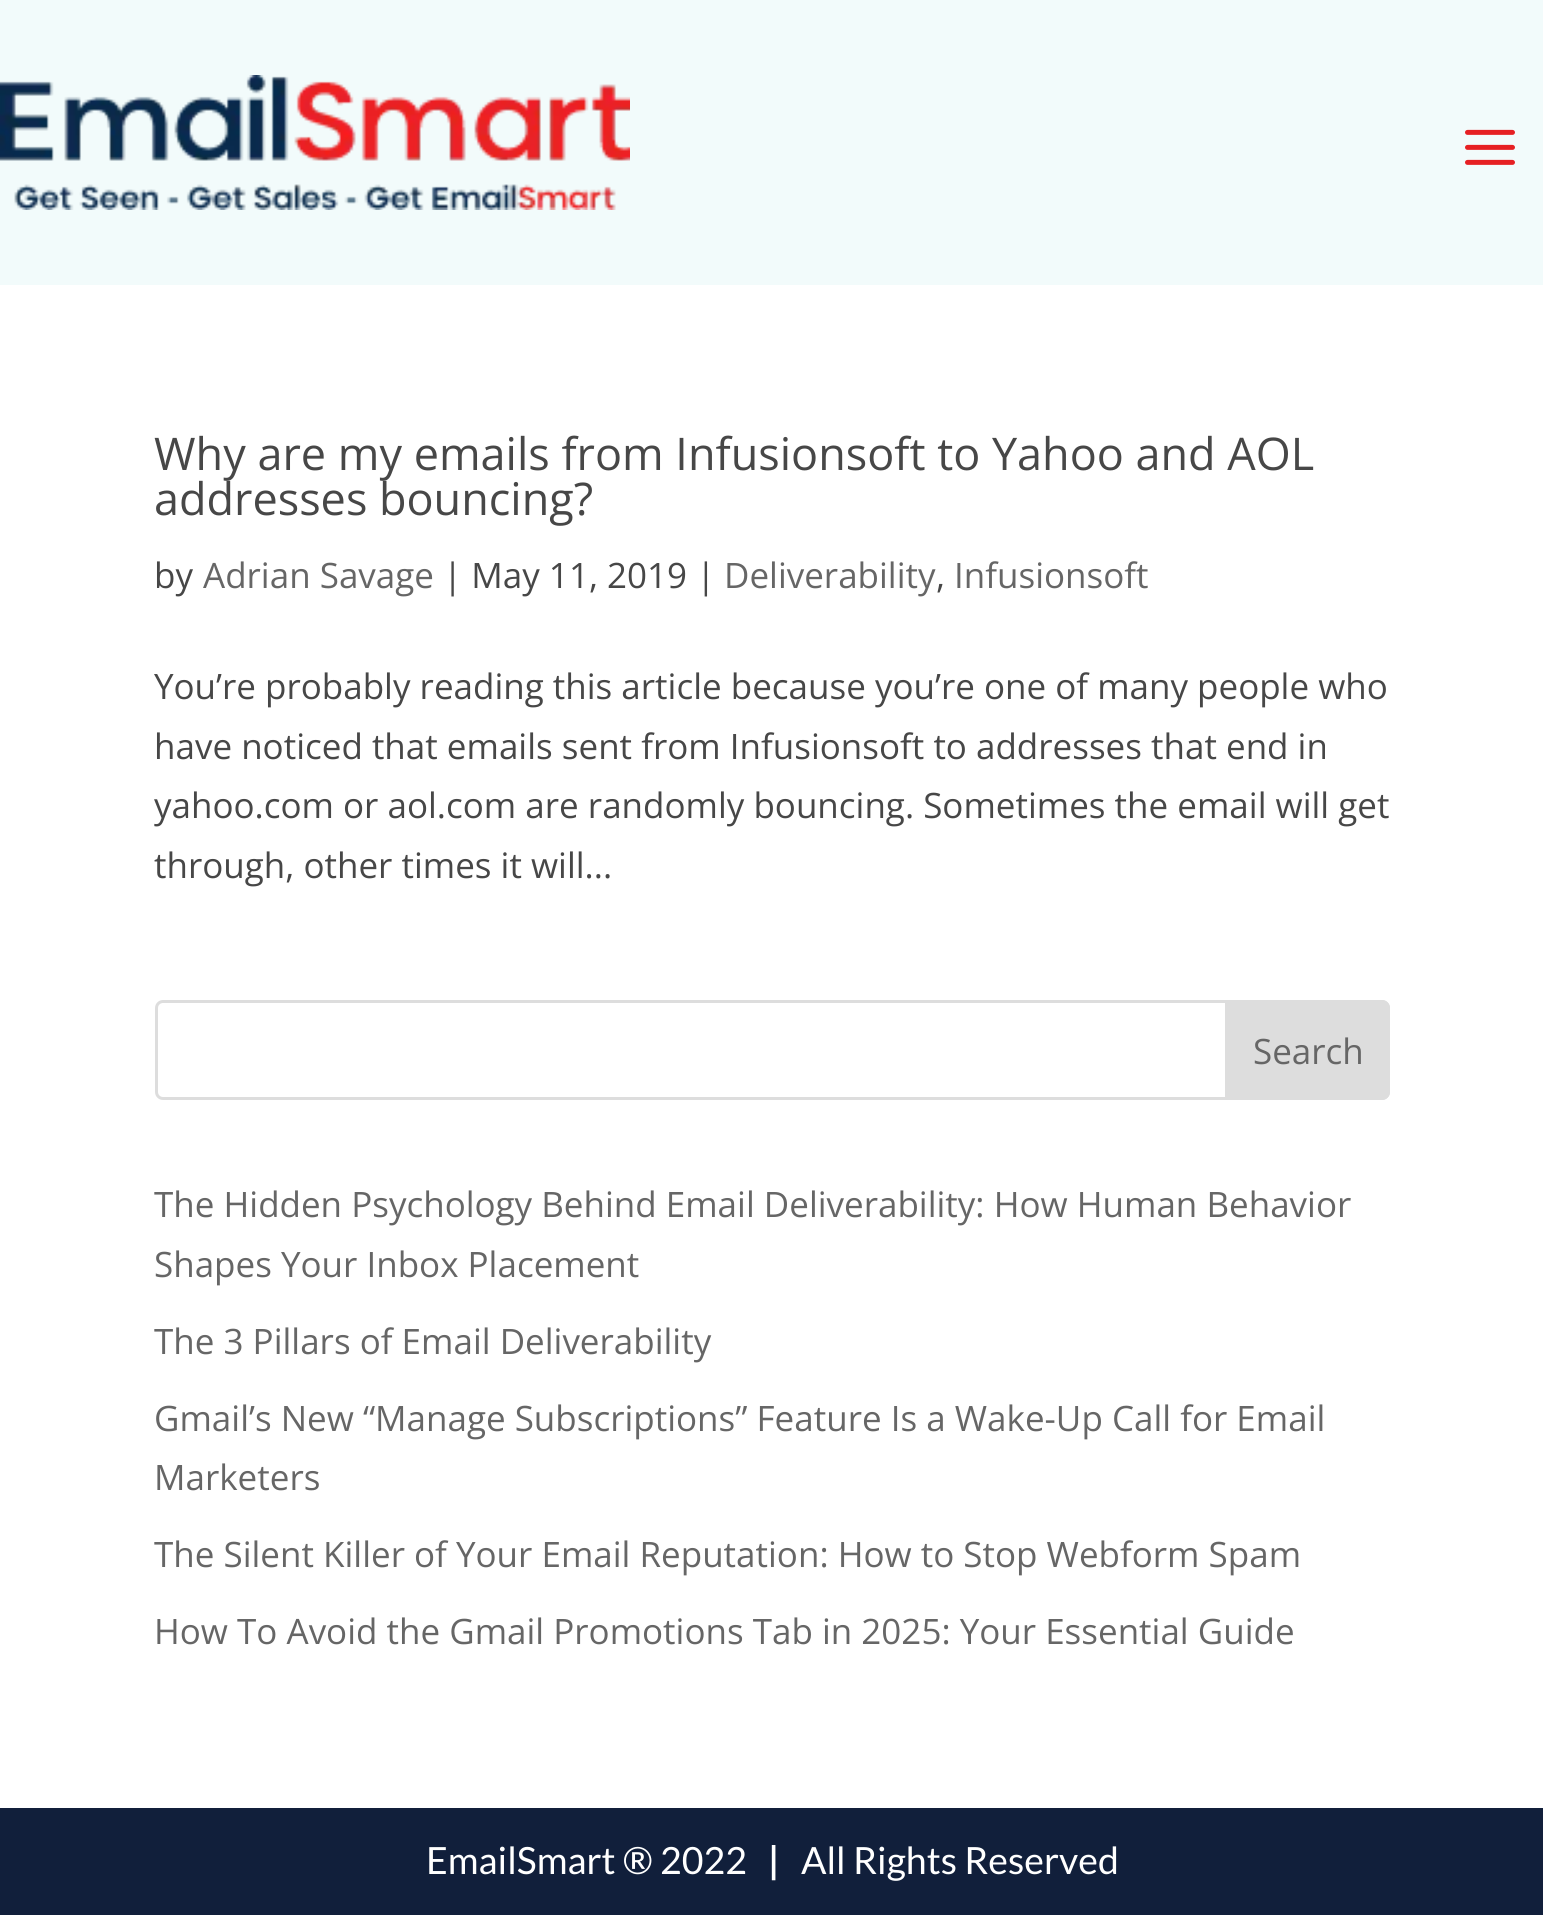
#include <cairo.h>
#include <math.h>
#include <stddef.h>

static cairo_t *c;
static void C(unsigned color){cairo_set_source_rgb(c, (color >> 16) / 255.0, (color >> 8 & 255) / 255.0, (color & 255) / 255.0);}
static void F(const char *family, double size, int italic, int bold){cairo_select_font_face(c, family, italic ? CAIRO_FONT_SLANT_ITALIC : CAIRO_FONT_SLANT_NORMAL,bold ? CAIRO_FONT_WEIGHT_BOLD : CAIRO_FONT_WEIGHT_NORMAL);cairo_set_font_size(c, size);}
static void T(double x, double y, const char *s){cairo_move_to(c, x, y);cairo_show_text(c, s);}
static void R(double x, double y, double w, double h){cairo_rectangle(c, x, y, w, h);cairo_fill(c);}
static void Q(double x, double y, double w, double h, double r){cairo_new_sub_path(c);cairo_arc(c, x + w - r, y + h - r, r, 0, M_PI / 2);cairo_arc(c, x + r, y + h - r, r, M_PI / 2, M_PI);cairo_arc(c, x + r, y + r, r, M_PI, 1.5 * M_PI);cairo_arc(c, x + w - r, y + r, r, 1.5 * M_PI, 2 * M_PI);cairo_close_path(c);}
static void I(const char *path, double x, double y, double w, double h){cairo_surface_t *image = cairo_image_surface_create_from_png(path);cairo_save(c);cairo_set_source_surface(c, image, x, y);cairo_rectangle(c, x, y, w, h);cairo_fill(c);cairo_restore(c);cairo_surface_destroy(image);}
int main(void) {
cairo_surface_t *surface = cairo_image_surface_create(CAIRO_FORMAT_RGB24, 1543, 1915);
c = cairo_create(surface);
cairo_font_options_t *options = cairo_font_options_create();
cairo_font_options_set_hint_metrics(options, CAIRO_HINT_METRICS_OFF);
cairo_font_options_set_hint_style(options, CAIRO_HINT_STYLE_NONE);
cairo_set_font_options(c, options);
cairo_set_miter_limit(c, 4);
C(0xffffff);
cairo_paint(c);
C(0xf2fbfb);
R(0,0,1543,285);
I("1.png",0,75,630,135);
I("2.png",1465,129,50,36);
F("Open Sans",45,0,0);
C(0x474747);
T(154,470,"Why are my emails from Infusionsoft to Yahoo and AOL");
T(154,515,"addresses bouncing?");
F("Open Sans",35,0,0);
T(154,588,"by");
C(0x666666);
T(203,588,"Adrian Savage");
C(0x474747);
T(443,588,"| May 11, 2019 |");
C(0x666666);
T(724,588,"Deliverability");
C(0x474747);
T(936,588,",");
C(0x666666);
T(954,588,"Infusionsoft");
C(0x474747);
T(154,699,"You’re probably reading this article because you’re one of many people who");
T(154,759,"have noticed that emails sent from Infusionsoft to addresses that end in");
T(154,818,"yahoo.com or aol.com are randomly bouncing. Sometimes the email will get");
T(154,878,"through, other times it will...");
Q(156.5,1001.5,1232,97,6.5);
C(0xdddddd);
cairo_set_line_width(c,3);
cairo_stroke(c);
cairo_new_path(c);
cairo_move_to(c,1226.5,1001.5);
cairo_line_to(c,1382,1001.5);
cairo_curve_to(c,1385.5,1001.5,1388.5,1004.5,1388.5,1008);
cairo_line_to(c,1388.5,1092);
cairo_curve_to(c,1388.5,1095.5,1385.5,1098.5,1382,1098.5);
cairo_line_to(c,1226.5,1098.5);
cairo_close_path(c);
cairo_fill_preserve(c);
cairo_stroke(c);
C(0x666666);
T(1253,1064,"Search");
T(154,1217,"The Hidden Psychology Behind Email Deliverability: How Human Behavior");
T(154,1277,"Shapes Your Inbox Placement");
T(154,1354,"The 3 Pillars of Email Deliverability");
T(154,1431,"Gmail’s New “Manage Subscriptions” Feature Is a Wake-Up Call for Email");
T(154,1490,"Marketers");
T(154,1567,"The Silent Killer of Your Email Reputation: How to Stop Webform Spam");
T(154,1644,"How To Avoid the Gmail Promotions Tab in 2025: Your Essential Guide");
C(0x111f3b);
R(0,1808,1543,107);
F("Lato",37.5,0,0);
C(0xffffff);
T(426,1874,"EmailSmart ® 2022");
F("Lato",37.5,0,1);
T(768,1874,"|");
F("Lato",37.5,0,0);
T(801,1874,"All Rights Reserved");
cairo_surface_write_to_png(surface, "o.png");
cairo_font_options_destroy(options);
cairo_destroy(c);
cairo_surface_destroy(surface);
return 0;
}
